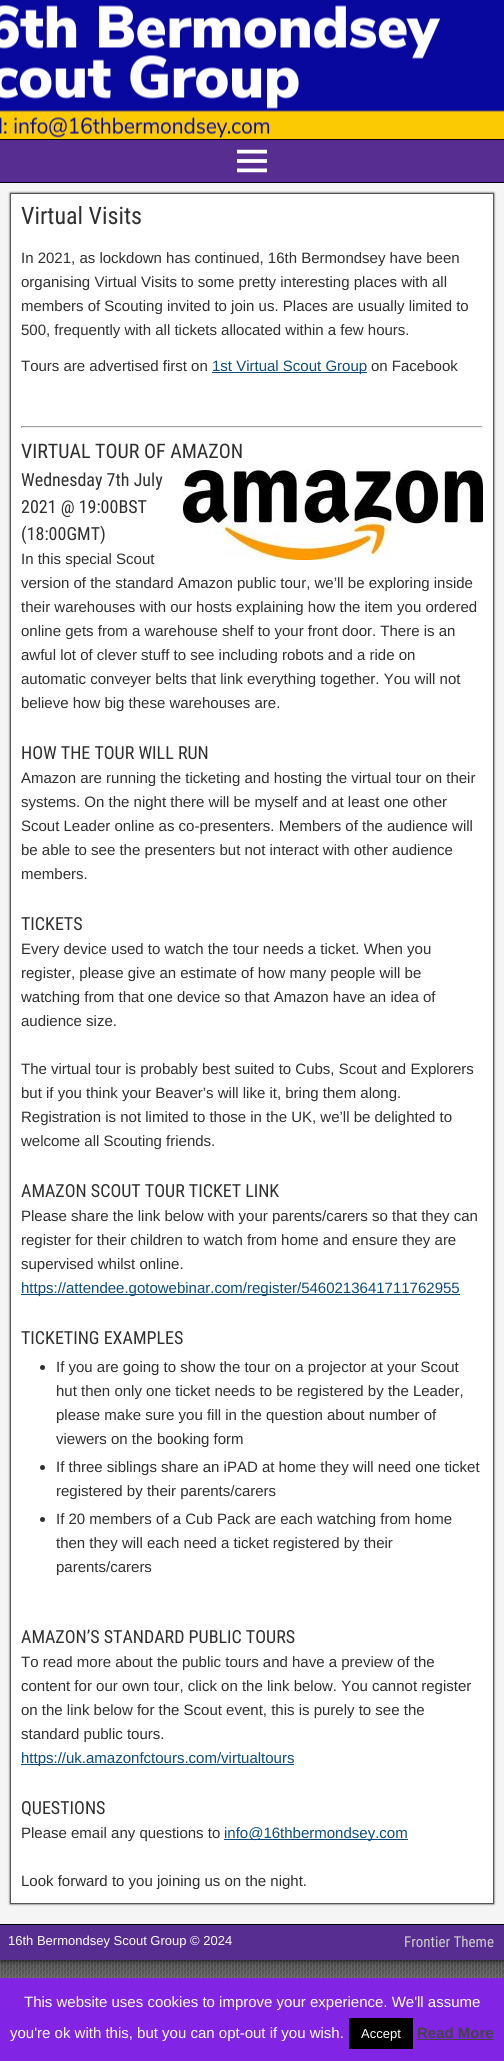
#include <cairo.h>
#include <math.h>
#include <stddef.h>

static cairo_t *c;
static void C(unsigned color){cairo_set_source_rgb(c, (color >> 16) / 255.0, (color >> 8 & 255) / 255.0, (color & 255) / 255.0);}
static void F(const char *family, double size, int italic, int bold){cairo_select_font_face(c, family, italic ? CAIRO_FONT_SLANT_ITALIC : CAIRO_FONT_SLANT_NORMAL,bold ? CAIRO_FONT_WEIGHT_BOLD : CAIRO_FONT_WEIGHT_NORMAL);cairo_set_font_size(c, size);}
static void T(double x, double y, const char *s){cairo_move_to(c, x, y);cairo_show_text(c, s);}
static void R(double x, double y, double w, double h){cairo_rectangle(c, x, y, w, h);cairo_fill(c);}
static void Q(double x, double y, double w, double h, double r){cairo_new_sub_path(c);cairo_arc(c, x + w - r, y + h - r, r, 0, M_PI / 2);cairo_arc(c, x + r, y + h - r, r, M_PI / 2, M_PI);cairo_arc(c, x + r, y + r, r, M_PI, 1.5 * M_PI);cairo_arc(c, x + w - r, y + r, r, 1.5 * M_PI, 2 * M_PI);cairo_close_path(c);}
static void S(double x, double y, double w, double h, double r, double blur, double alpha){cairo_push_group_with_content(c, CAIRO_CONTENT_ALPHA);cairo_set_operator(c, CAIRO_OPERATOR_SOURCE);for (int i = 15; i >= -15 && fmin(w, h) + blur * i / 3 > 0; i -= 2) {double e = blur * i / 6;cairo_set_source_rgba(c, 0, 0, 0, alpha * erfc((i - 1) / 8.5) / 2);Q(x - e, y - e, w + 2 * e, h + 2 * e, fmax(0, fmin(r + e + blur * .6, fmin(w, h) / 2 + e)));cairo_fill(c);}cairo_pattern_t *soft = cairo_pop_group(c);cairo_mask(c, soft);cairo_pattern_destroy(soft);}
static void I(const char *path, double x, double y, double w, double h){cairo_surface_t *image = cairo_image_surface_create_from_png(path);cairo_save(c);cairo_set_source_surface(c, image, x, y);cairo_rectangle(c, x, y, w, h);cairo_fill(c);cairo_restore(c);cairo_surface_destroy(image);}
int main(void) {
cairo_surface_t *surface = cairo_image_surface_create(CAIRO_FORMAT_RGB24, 504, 2061);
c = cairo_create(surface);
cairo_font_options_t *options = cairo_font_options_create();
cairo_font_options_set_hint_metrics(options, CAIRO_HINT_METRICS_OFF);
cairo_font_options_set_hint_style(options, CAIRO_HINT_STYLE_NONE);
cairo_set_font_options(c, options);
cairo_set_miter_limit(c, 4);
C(0x505050);
cairo_paint(c);
I("1.png",0,1960,504,18);
C(0x000000);
S(0,0,504,1960,0,3,1);
I("2.png",0,0,504,139);
C(0x000000);
R(0,139,504,1);
C(0x572d91);
R(0,140,504,42);
C(0x000000);
R(0,182,504,1);
I("3.png",237,149,30,24);
C(0xf5f5f5);
R(0,183,504,1741);
C(0x333333);
S(10,193,484,1711,0,1,1);
C(0xffffff);
cairo_rectangle(c,10.5,193.5,483,1710);
cairo_fill_preserve(c);
C(0x555555);
cairo_set_line_width(c,1);
cairo_stroke(c);
F("Roboto Condensed",24,0,0);
C(0x303030);
T(21,224,"Virtual Visits");
F("Arimo",15,0,0);
T(21,263,"In 2021, as lockdown has continued, 16th Bermondsey have been");
T(21,287,"organising Virtual Visits to some pretty interesting places with all");
T(21,311,"members of Scouting invited to join us. Places are usually limited to");
T(21,335,"500, frequently with all tickets allocated within a few hours.");
T(21,371,"Tours are advertised first on");
C(0x0e4d7a);
R(212,372,155,1);
T(212,371,"1st Virtual Scout Group");
C(0x303030);
T(371,371,"on Facebook");
C(0x9f9f9f);
R(21,426,462,1);
C(0xeeeeee);
R(482,426,1,2);
R(21,427,462,1);
C(0x9f9f9f);
R(21,426,1,2);
F("Roboto Condensed",20,0,0);
C(0x303030);
T(21,458,"VIRTUAL TOUR OF AMAZON");
F("Roboto Condensed",18,0,0);
T(21,486,"Wednesday 7th July");
I("4.png",183,470,300,90);
T(21,513,"2021 @ 19:00BST");
T(21,540,"(18:00GMT)");
F("Arimo",15,0,0);
T(21,564,"In this special Scout");
T(21,588,"version of the standard Amazon public tour, we’ll be exploring inside");
T(21,612,"their warehouses with our hosts explaining how the item you ordered");
T(21,636,"online gets from a warehouse shelf to your front door. There is an");
T(21,660,"awful lot of clever stuff to see including robots and a ride on");
T(21,684,"automatic conveyer belts that link everything together. You will not");
T(21,708,"believe how big these warehouses are.");
F("Roboto Condensed",18,0,0);
T(21,759,"HOW THE TOUR WILL RUN");
F("Arimo",15,0,0);
T(21,783,"Amazon are running the ticketing and hosting the virtual tour on their");
T(21,807,"systems. On the night there will be myself and at least one other");
T(21,831,"Scout Leader online as co-presenters. Members of the audience will");
T(21,855,"be able to see the presenters but not interact with other audience");
T(21,879,"members.");
F("Roboto Condensed",18,0,0);
T(21,930,"TICKETS");
F("Arimo",15,0,0);
T(21,954,"Every device used to watch the tour needs a ticket. When you");
T(21,978,"register, please give an estimate of how many people will be");
T(21,1002,"watching from that one device so that Amazon have an idea of");
T(21,1026,"audience size.");
T(21,1074,"The virtual tour is probably best suited to Cubs, Scout and Explorers");
T(21,1098,"but if you think your Beaver’s will like it, bring them along.");
T(21,1122,"Registration is not limited to those in the UK, we’ll be delighted to");
T(21,1146,"welcome all Scouting friends.");
F("Roboto Condensed",18,0,0);
T(21,1197,"AMAZON SCOUT TOUR TICKET LINK");
F("Arimo",15,0,0);
T(21,1221,"Please share the link below with your parents/carers so that they can");
T(21,1245,"register for their children to watch from home and ensure they are");
T(21,1269,"supervised whilst online.");
C(0x0e4d7a);
R(21,1294,439,1);
T(21,1293,"https://attendee.gotowebinar.com/register/5460213641711762955");
F("Roboto Condensed",18,0,0);
C(0x303030);
T(21,1344,"TICKETING EXAMPLES");
cairo_new_path(c);
cairo_arc(c,42.5,1367.5,2.5,0,2 * M_PI);
cairo_fill(c);
F("Arimo",15,0,0);
T(56,1372,"If you are going to show the tour on a projector at your Scout");
T(56,1396,"hut then only one ticket needs to be registered by the Leader,");
T(56,1420,"please make sure you fill in the question about number of");
T(56,1444,"viewers on the booking form");
cairo_new_path(c);
cairo_arc(c,42.5,1467.5,2.5,0,2 * M_PI);
cairo_fill(c);
T(56,1472,"If three siblings share an iPAD at home they will need one ticket");
T(56,1496,"registered by their parents/carers");
cairo_new_path(c);
cairo_arc(c,42.5,1519.5,2.5,0,2 * M_PI);
cairo_fill(c);
T(56,1524,"If 20 members of a Cub Pack are each watching from home");
T(56,1548,"then they will each need a ticket registered by their");
T(56,1572,"parents/carers");
F("Roboto Condensed",18,0,0);
T(21,1643,"AMAZON’S STANDARD PUBLIC TOURS");
F("Arimo",15,0,0);
T(21,1667,"To read more about the public tours and have a preview of the");
T(21,1691,"content for our own tour, click on the link below. You cannot register");
T(21,1715,"on the link below for the Scout event, this is purely to see the");
T(21,1739,"standard public tours.");
C(0x0e4d7a);
R(21,1764,273,1);
T(21,1763,"https://uk.amazonfctours.com/virtualtours");
F("Roboto Condensed",18,0,0);
C(0x303030);
T(21,1814,"QUESTIONS");
F("Arimo",15,0,0);
T(21,1838,"Please email any questions to");
C(0x0e4d7a);
R(224,1839,184,1);
T(224,1838,"info@16thbermondsey.com");
C(0x303030);
T(21,1886,"Look forward to you joining us on the night.");
C(0x572d91);
R(0,1925,504,35);
C(0x000000);
R(0,1924,504,1);
F("Liberation Sans",13,0,0);
C(0xffffff);
T(8,1945,"16th Bermondsey Scout Group © 2024");
F("Roboto Condensed",15,0,0);
C(0xcccccc);
T(404,1947,"Frontier Theme");
C(0xacabab);
S(0,1977,504,83,0,5,.3);
C(0x8224e3);
R(0,1978,504,83);
F("Liberation Sans",15,0,0);
C(0xffffff);
T(24,2007,"This website uses cookies to improve your experience. We'll assume");
T(10,2038,"you're ok with this, but you can opt-out if you wish.");
C(0x000000);
R(349,2018,64,31);
F("Liberation Sans",13,0,0);
C(0xffffff);
T(361,2038,"Accept");
F("Liberation Sans",15,0,1);
C(0x444444);
T(417,2038,"Read More");
R(417,2039,77,1);
cairo_surface_write_to_png(surface, "o.png");
cairo_font_options_destroy(options);
cairo_destroy(c);
cairo_surface_destroy(surface);
return 0;
}
